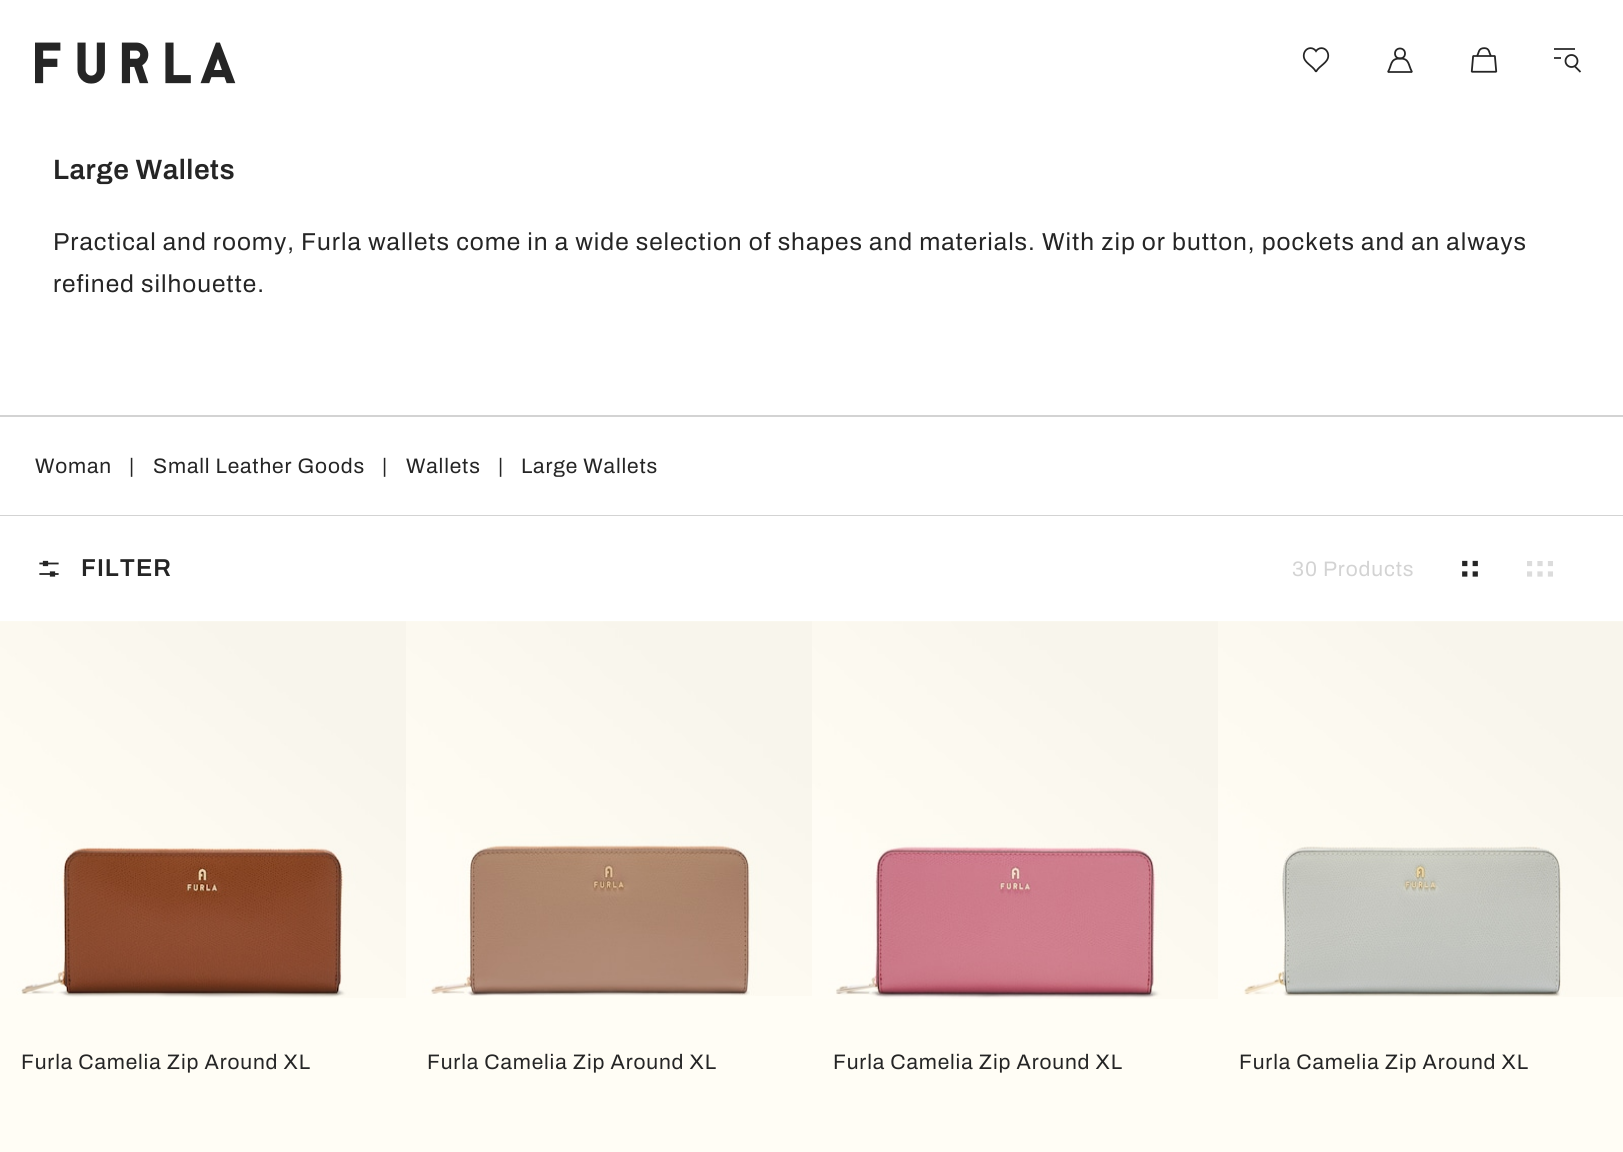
#include <cairo.h>
#include <math.h>
#include <stddef.h>

static cairo_t *c;
static void C(unsigned color){cairo_set_source_rgb(c, (color >> 16) / 255.0, (color >> 8 & 255) / 255.0, (color & 255) / 255.0);}
static void F(const char *family, double size, int italic, int bold){cairo_select_font_face(c, family, italic ? CAIRO_FONT_SLANT_ITALIC : CAIRO_FONT_SLANT_NORMAL,bold ? CAIRO_FONT_WEIGHT_BOLD : CAIRO_FONT_WEIGHT_NORMAL);cairo_set_font_size(c, size);}
static void L(double x, double y, const char *s, double letter, double word){cairo_move_to(c, x, y);while (*s) {char ch[5] = {0};int n = 0;do ch[n++] = *s++; while ((*s & 0xC0) == 0x80);cairo_show_text(c, ch);cairo_rel_move_to(c, letter + word * (*ch == ' '), 0);}}
static void R(double x, double y, double w, double h){cairo_rectangle(c, x, y, w, h);cairo_fill(c);}
static void I(const char *path, double x, double y, double w, double h){cairo_surface_t *image = cairo_image_surface_create_from_png(path);cairo_save(c);cairo_set_source_surface(c, image, x, y);cairo_rectangle(c, x, y, w, h);cairo_fill(c);cairo_restore(c);cairo_surface_destroy(image);}
int main(void) {
cairo_surface_t *surface = cairo_image_surface_create(CAIRO_FORMAT_RGB24, 1623, 1152);
c = cairo_create(surface);
cairo_font_options_t *options = cairo_font_options_create();
cairo_font_options_set_hint_metrics(options, CAIRO_HINT_METRICS_OFF);
cairo_font_options_set_hint_style(options, CAIRO_HINT_STYLE_NONE);
cairo_set_font_options(c, options);
cairo_set_miter_limit(c, 4);
C(0xffffff);
cairo_paint(c);
I("1.png",35,42,201,42);
I("2.png",1302,47,28,26);
cairo_arc(c,1400,53.5,5,0,2 * M_PI);
C(0x252525);
cairo_set_line_width(c,1.8);
cairo_stroke(c);
cairo_new_path(c);
cairo_move_to(c,1400,58.5);
cairo_curve_to(c,1390,58.5,1392,65,1388,72);
cairo_line_to(c,1412,72);
cairo_curve_to(c,1408,64.5,1409.5,58.5,1400,58.5);
cairo_close_path(c);
cairo_set_line_join(c,CAIRO_LINE_JOIN_BEVEL);
cairo_stroke(c);
I("3.png",1470,47,28,26);
cairo_new_path(c);
cairo_move_to(c,1561,58);
cairo_line_to(c,1554,58);
cairo_move_to(c,1575,49);
cairo_line_to(c,1554,49);
cairo_move_to(c,1580.5,72);
cairo_line_to(c,1575,66.5);
cairo_set_line_join(c,CAIRO_LINE_JOIN_MITER);
cairo_stroke(c);
cairo_arc(c,1571.5,61,6,0,2 * M_PI);
cairo_stroke(c);
F("Archivo SemiBold",28,0,0);
L(53,179,"Large Wallets",.5,0);
F("Archivo",24.5,0,0);
L(53,250,"Practical and roomy, Furla wallets come in a wide selection of shapes and materials. With zip or button, pockets and an always",.98,0);
L(53,292,"refined silhouette.",.98,0);
C(0xd3d3d3);
R(0,415,1623,2);
R(0,515,1623,1);
F("Archivo",21,0,0);
C(0x252525);
L(35,473,"Woman",.85,0);
L(129,473,"|",.85,0);
L(153,473,"Small Leather Goods",.85,0);
L(382,473,"|",.85,0);
L(406,473,"Wallets",.85,0);
L(498,473,"|",.85,0);
L(521,473,"Large Wallets",.85,0);
I("4.png",39,560,20,17);
F("Archivo SemiBold",24.5,0,0);
L(81,576,"FILTER",.98,0);
F("Archivo",21,0,0);
C(0xd3d3d3);
L(1292,576,"30 Products",.85,0);
I("5.png",1462,560,16,17);
I("6.png",1527,561,26,16);
C(0xfffdf5);
R(0,621,1623,531);
I("7.png",0,621,406,377);
C(0x252525);
L(21,1069,"Furla Camelia Zip Around XL",.85,0);
I("8.png",406,621,406,375);
L(427,1069,"Furla Camelia Zip Around XL",.85,0);
I("9.png",812,621,406,378);
L(833,1069,"Furla Camelia Zip Around XL",.85,0);
I("10.png",1218,621,405,376);
L(1239,1069,"Furla Camelia Zip Around XL",.85,0);
cairo_surface_write_to_png(surface, "o.png");
cairo_font_options_destroy(options);
cairo_destroy(c);
cairo_surface_destroy(surface);
return 0;
}
